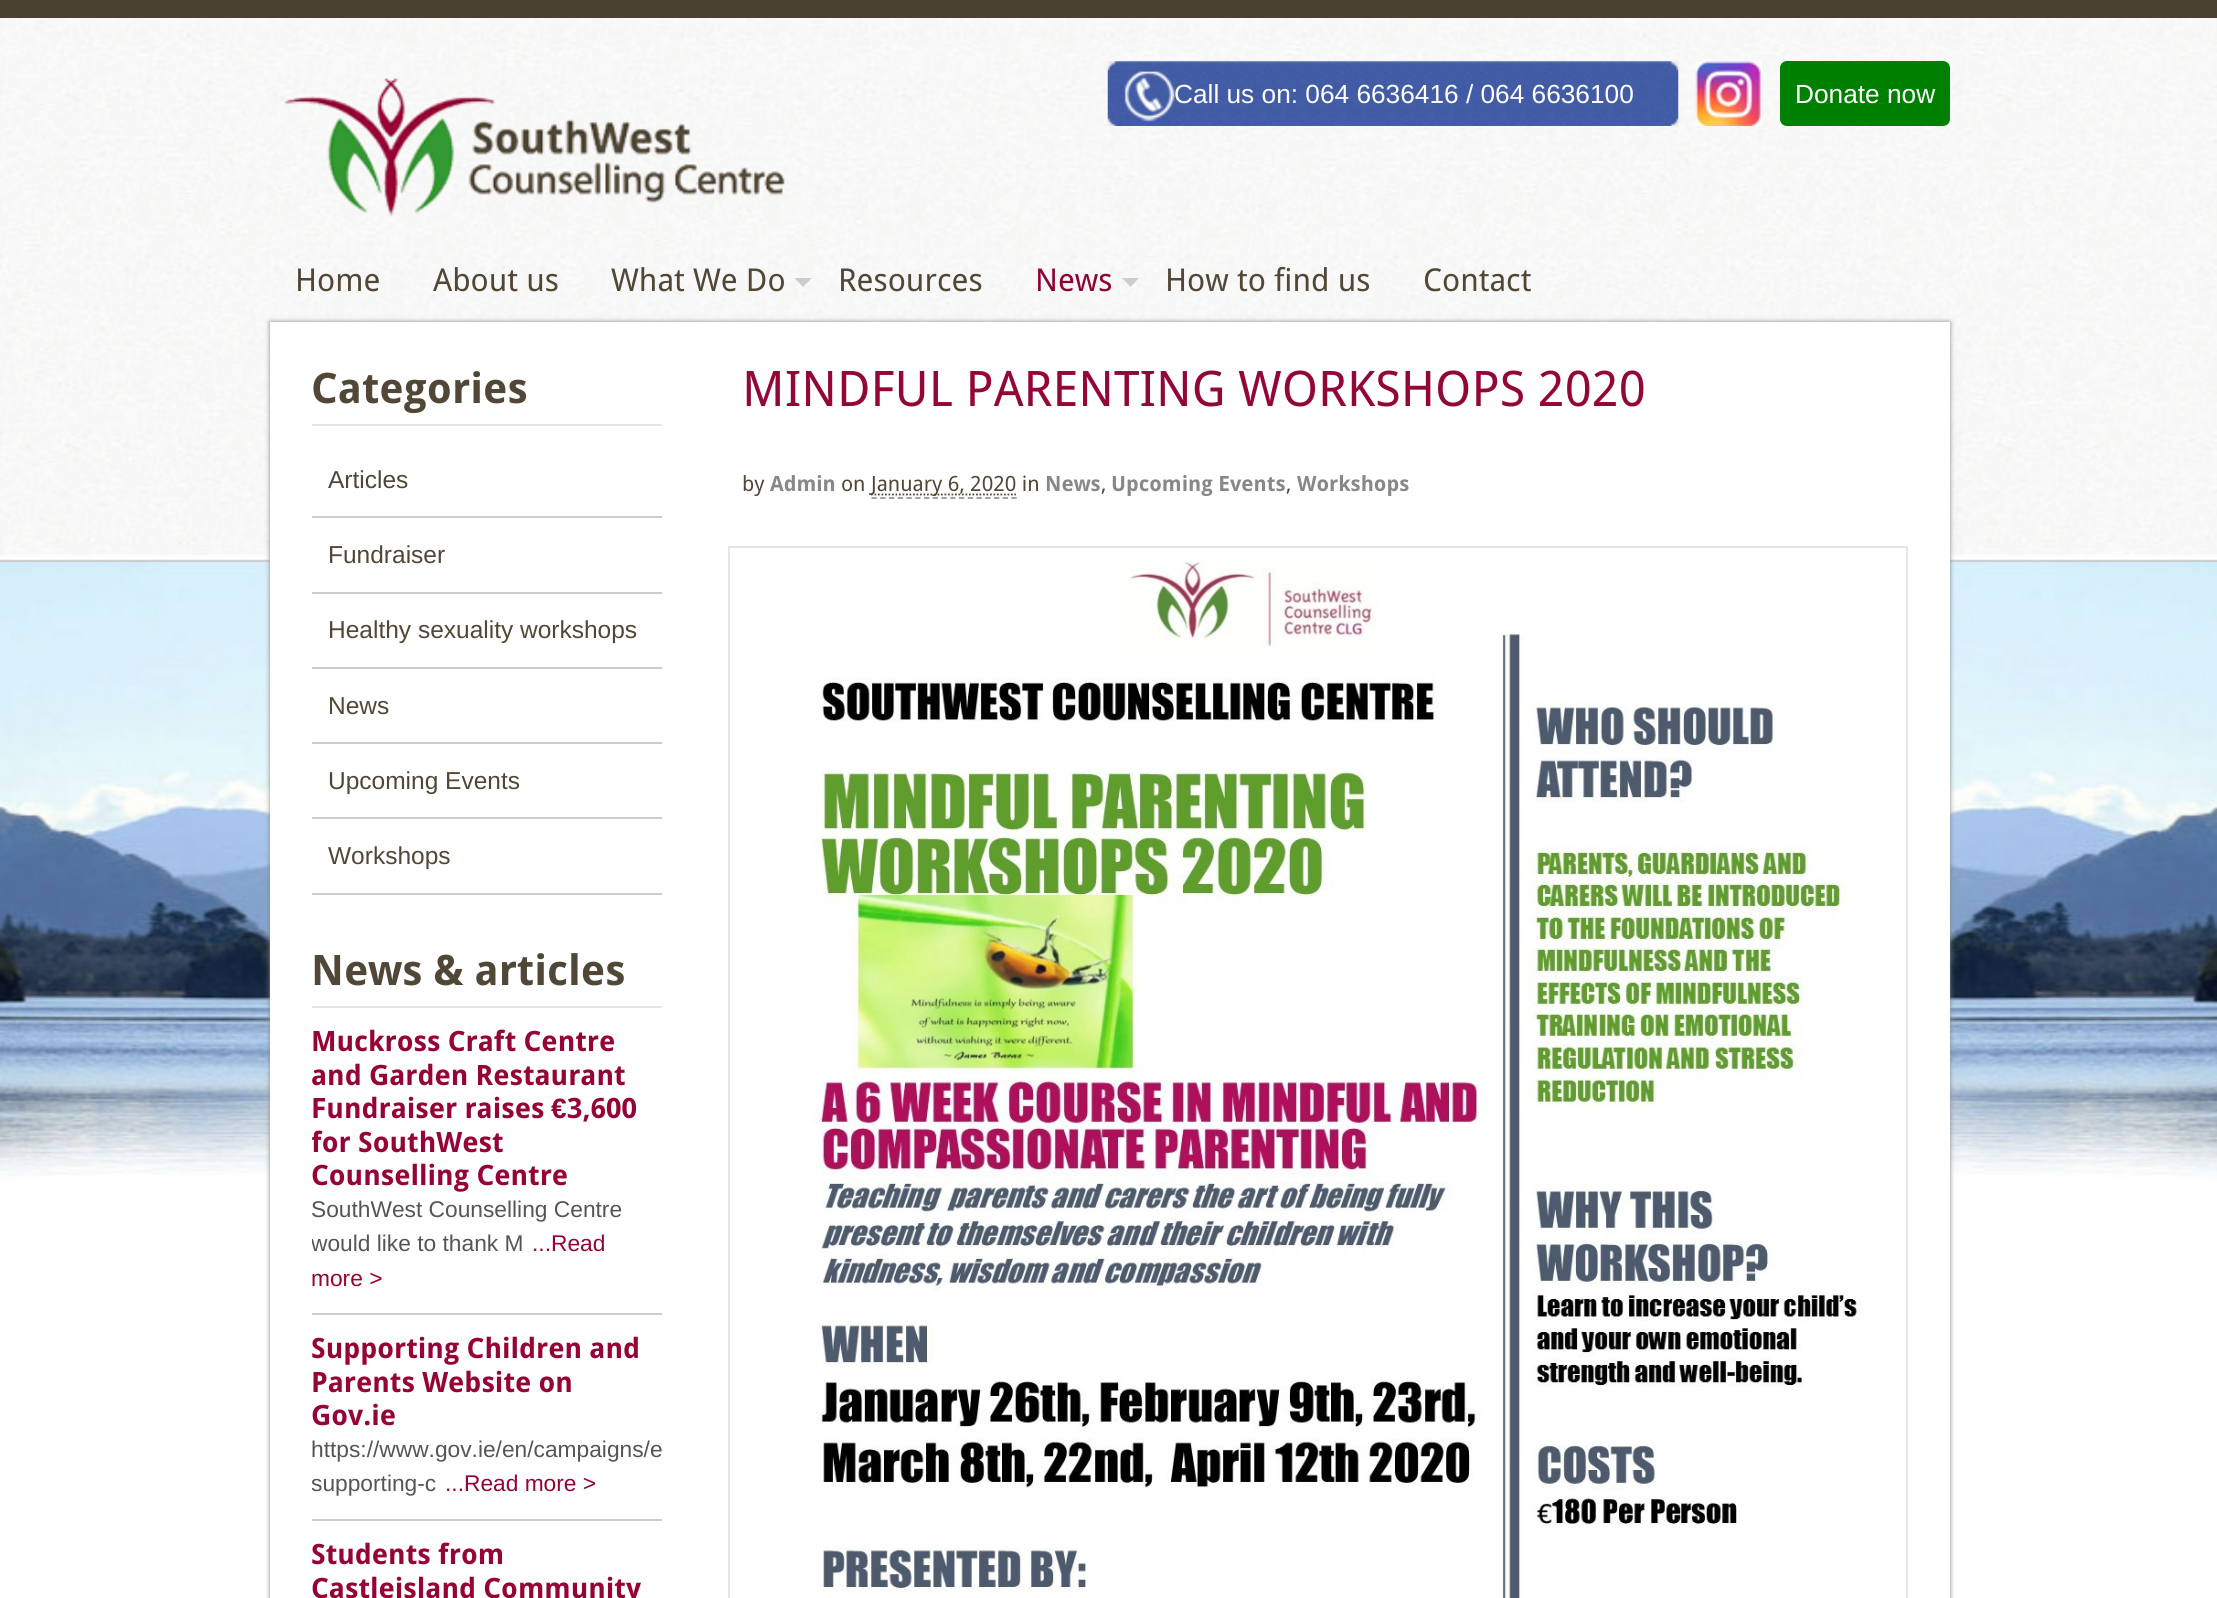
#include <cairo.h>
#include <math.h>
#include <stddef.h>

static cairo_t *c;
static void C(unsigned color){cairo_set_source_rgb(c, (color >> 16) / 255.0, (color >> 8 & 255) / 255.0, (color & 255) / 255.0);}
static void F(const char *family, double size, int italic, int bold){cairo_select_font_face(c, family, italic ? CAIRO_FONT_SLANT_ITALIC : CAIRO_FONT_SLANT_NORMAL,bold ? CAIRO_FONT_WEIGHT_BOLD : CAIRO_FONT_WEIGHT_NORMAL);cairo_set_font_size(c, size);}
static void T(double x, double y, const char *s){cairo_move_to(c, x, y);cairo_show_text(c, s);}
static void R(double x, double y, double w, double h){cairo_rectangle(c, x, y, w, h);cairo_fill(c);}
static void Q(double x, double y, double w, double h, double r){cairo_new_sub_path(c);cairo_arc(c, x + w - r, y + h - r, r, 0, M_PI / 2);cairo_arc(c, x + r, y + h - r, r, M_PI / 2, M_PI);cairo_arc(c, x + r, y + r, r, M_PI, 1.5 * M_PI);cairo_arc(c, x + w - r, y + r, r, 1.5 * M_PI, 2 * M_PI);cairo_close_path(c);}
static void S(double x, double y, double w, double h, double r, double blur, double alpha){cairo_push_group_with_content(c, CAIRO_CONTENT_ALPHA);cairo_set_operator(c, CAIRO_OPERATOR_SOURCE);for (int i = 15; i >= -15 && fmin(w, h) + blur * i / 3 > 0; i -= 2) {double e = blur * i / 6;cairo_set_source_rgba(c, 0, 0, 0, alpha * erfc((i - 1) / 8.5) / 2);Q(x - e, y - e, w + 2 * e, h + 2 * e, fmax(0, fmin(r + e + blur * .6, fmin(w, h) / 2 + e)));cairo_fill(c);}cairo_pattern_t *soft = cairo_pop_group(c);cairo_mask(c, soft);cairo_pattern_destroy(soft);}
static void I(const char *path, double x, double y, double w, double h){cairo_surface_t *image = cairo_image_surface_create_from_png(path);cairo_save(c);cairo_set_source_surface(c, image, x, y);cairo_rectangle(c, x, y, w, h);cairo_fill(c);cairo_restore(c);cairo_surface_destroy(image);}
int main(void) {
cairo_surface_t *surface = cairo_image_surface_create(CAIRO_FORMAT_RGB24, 2217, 1598);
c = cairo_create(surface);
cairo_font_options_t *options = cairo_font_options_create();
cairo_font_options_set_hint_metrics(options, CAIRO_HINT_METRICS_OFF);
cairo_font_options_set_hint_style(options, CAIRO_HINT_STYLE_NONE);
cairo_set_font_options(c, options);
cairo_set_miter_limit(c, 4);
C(0xffffff);
cairo_paint(c);
C(0x4a4130);
R(0,0,2217,18);
I("1.png",0,18,2217,1162);
I("2.png",284,78,501,138);
I("3.png",1107,61,572,65);
F("Liberation Sans",26.25,0,0);
C(0xffffff);
T(1174,103,"Call us on: 064 6636416 / 064 6636100");
I("4.png",1695,61,67,65);
C(0x008000);
Q(1780,61,170,65,7);
cairo_fill(c);
C(0xffffff);
T(1795,103,"Donate now");
F("Droid Sans",31.5,0,0);
C(0x504737);
T(295,291,"Home");
T(433,291,"About us");
T(611,291,"What We Do");
C(0xcccccc);
cairo_new_path(c);
cairo_move_to(c,794.5,278);
cairo_line_to(c,812,278);
cairo_line_to(c,803,287);
cairo_close_path(c);
cairo_fill(c);
C(0x504737);
T(838,291,"Resources");
C(0x8d0331);
T(1035,291,"News");
C(0xcccccc);
cairo_new_path(c);
cairo_move_to(c,1122,278);
cairo_line_to(c,1139,278);
cairo_line_to(c,1130.5,287);
cairo_close_path(c);
cairo_fill(c);
C(0x504737);
T(1165,291,"How to find us");
T(1423,291,"Contact");
C(0x888888);
S(270,322,1680,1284,0,2.5,1);
C(0xffffff);
R(270,322,1680,1276);
C(0xe6e6e6);
R(312,424,350,2);
F("Droid Sans",42,0,1);
C(0x504737);
T(311,403,"Categories");
C(0xcccccc);
R(312,516,350,2);
F("Liberation Sans",24.5,0,0);
C(0x504737);
T(328,488,"Articles");
C(0xcccccc);
R(312,592,350,2);
C(0x504737);
T(328,563,"Fundraiser");
C(0xcccccc);
R(312,667,350,2);
C(0x504737);
T(328,638,"Healthy sexuality workshops");
C(0xcccccc);
R(312,742,350,2);
C(0x504737);
T(328,714,"News");
C(0xcccccc);
R(312,817,350,2);
C(0x504737);
T(328,789,"Upcoming Events");
C(0xcccccc);
R(312,893,350,2);
C(0x504737);
T(328,864,"Workshops");
C(0xe6e6e6);
R(312,1006,350,2);
F("Droid Sans",42,0,1);
C(0x504737);
T(311,985,"News & articles");
C(0xcccccc);
R(312,1313,350,2);
F("Droid Sans",28,0,1);
C(0x950432);
T(311,1051,"Muckross Craft Centre");
cairo_save(c);
cairo_rectangle(c,312,364,350,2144);
cairo_clip(c);
T(311,1085,"and Garden Restaurant");
cairo_restore(c);
T(311,1118,"Fundraiser raises");
F("Liberation Sans",28,0,1);
T(551,1118,"€");
F("Droid Sans",28,0,1);
T(567,1118,"3,600");
cairo_save(c);
cairo_rectangle(c,312,364,350,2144);
cairo_clip(c);
T(311,1152,"for SouthWest");
cairo_restore(c);
T(311,1185,"Counselling Centre");
F("Liberation Sans",22.75,0,0);
C(0x555555);
T(311,1217,"SouthWest Counselling Centre");
cairo_save(c);
cairo_rectangle(c,312,364,350,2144);
cairo_clip(c);
T(311,1251,"would like to thank M");
cairo_restore(c);
C(0x950432);
T(532,1251,"...Read");
T(311,1286,"more >");
C(0xcccccc);
R(312,1519,350,2);
cairo_save(c);
cairo_rectangle(c,312,364,350,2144);
cairo_clip(c);
F("Droid Sans",28,0,1);
C(0x950432);
T(311,1358,"Supporting Children and");
cairo_restore(c);
F("Droid Sans",28,0,1);
C(0x950432);
T(311,1392,"Parents Website on");
T(311,1425,"Gov.ie");
F("Liberation Sans",22.75,0,0);
C(0x555555);
T(311,1457,"https://www.gov.ie/en/campaigns/e");
cairo_save(c);
cairo_rectangle(c,312,364,350,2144);
cairo_clip(c);
T(311,1491,"supporting-c");
cairo_restore(c);
C(0x950432);
T(445,1491,"...Read more >");
cairo_save(c);
cairo_rectangle(c,312,364,350,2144);
cairo_clip(c);
F("Droid Sans",28,0,1);
T(311,1564,"Students from");
cairo_restore(c);
F("Droid Sans",28,0,1);
T(311,1598,"Castleisland Community");
F("Droid Sans",49,0,0);
C(0x930738);
T(742,406,"MINDFUL PARENTING WORKSHOPS 2020");
F("Droid Sans",21,0,0);
C(0x504737);
T(742,491,"by");
F("Droid Sans",21,0,1);
C(0x888888);
T(770,491,"Admin");
F("Droid Sans",21,0,0);
C(0x504737);
T(841,491,"on");
cairo_new_path(c);
cairo_move_to(c,871,494.5);
cairo_line_to(c,1016,494.5);
cairo_set_line_width(c,1.8);
cairo_set_dash(c,(double[]){1.75,1.75},2,0);
cairo_stroke(c);
T(871,491,"January 6, 2020 in");
cairo_new_path(c);
cairo_move_to(c,871.5,498);
cairo_line_to(c,1017,498);
C(0x999999);
cairo_set_dash(c,(double[]){5.25,3.5},2,0);
cairo_stroke(c);
F("Droid Sans",21,0,1);
C(0x888888);
T(1045,491,"News");
F("Droid Sans",21,0,0);
C(0x504737);
T(1101,491,",");
F("Droid Sans",21,0,1);
C(0x888888);
T(1111,491,"Upcoming Events");
F("Droid Sans",21,0,0);
C(0x504737);
T(1286,491,",");
F("Droid Sans",21,0,1);
C(0x888888);
T(1297,491,"Workshops");
cairo_rectangle(c,729,547,1178,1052);
C(0xe6e6e6);
cairo_set_line_width(c,2);
cairo_set_dash(c,NULL,0,0);
cairo_stroke(c);
I("5.png",810,560,1051,1038);
cairo_surface_write_to_png(surface, "o.png");
cairo_font_options_destroy(options);
cairo_destroy(c);
cairo_surface_destroy(surface);
return 0;
}
